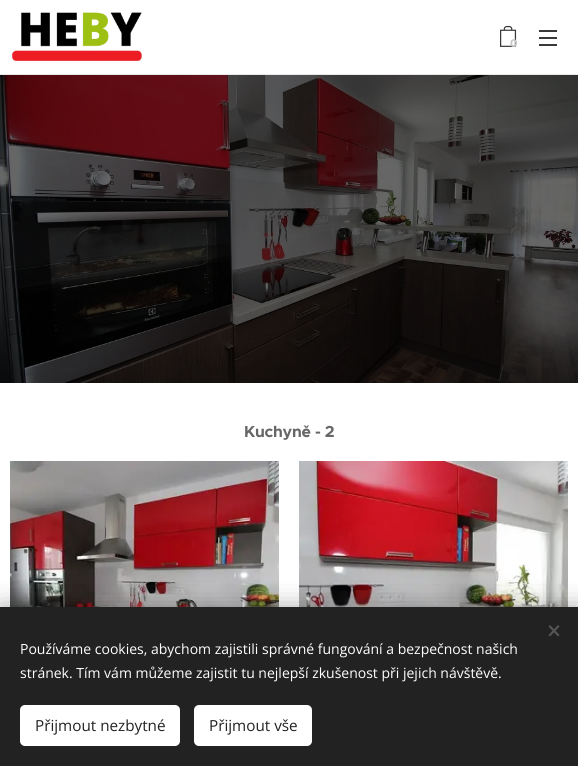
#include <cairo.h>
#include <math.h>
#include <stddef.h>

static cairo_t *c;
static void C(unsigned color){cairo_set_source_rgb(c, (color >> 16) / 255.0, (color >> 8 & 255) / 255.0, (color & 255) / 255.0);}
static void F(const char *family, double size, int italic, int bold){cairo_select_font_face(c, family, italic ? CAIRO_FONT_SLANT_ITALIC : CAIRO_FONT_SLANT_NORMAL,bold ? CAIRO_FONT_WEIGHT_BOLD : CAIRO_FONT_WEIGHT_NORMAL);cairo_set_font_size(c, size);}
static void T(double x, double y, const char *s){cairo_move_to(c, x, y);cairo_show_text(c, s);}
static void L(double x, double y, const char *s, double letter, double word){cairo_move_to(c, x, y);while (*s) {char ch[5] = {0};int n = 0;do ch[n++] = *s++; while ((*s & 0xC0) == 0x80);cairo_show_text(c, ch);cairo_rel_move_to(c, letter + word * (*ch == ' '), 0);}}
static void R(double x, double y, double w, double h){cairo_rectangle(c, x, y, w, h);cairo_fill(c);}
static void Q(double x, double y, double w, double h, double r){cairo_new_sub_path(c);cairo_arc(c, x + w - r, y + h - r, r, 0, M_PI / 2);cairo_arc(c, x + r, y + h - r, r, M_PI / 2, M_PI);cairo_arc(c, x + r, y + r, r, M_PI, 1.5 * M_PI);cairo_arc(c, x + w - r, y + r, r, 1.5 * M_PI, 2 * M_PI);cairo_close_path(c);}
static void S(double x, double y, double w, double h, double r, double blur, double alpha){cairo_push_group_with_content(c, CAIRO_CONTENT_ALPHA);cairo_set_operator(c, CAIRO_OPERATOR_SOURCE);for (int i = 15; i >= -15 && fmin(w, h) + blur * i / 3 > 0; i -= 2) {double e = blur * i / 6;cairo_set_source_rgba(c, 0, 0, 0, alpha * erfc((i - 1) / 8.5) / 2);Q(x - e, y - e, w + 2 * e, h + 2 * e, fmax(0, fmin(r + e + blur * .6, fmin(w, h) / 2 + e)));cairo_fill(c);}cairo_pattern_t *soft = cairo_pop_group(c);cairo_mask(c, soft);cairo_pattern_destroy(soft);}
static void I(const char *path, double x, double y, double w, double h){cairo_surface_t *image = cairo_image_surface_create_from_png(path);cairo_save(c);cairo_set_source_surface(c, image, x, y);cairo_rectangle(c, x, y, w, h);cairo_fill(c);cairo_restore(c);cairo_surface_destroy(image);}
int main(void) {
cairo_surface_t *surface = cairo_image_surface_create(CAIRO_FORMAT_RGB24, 578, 766);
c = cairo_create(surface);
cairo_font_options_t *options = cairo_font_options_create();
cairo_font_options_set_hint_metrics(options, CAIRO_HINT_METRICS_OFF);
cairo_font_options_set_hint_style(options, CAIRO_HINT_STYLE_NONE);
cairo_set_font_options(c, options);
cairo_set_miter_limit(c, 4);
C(0xffffff);
cairo_paint(c);
C(0xe8e8e8);
R(0,74,578,1);
I("1.png",12,12,130,49);
I("2.png",500,25,17,22);
F("Montserrat",11,0,1);
C(0xc7c7c7);
T(510,47,"0");
C(0x393939);
R(539,37,18,2);
R(539,30,18,2);
R(539,44,18,2);
I("3.png",0,75,578,308);
F("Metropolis",16,0,1);
C(0x666666);
L(244,437,"Kuchyně - 2",-.25,0);
I("4.png",10,461,269,146);
I("5.png",299,461,269,146);
C(0x000000);
S(0,607,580,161,0,12.5,.33);
C(0x222222);
R(0,607,578,159);
C(0x555555);
cairo_new_path(c);
cairo_move_to(c,548.5,635);
cairo_line_to(c,558,625);
cairo_line_to(c,559.5,626.5);
cairo_line_to(c,550,636.5);
cairo_close_path(c);
cairo_fill(c);
cairo_new_path(c);
cairo_move_to(c,550,625);
cairo_line_to(c,559.5,635);
cairo_line_to(c,558,636.5);
cairo_line_to(c,548.5,626.5);
cairo_close_path(c);
cairo_fill(c);
F("Open Sans",14,0,0);
C(0xffffff);
T(20,654,"Používáme cookies, abychom zajistili správné fungování a bezpečnost našich");
T(20,678,"stránek. Tím vám můžeme zajistit tu nejlepší zkušenost při jejich návštěvě.");
Q(20,705,160,41,5);
cairo_fill(c);
F("Open Sans",15.25,0,0);
C(0x222222);
T(35,731,"Přijmout nezbytné");
C(0xffffff);
Q(194,705,118,41,5);
cairo_fill(c);
C(0x222222);
T(209,731,"Přijmout vše");
cairo_surface_write_to_png(surface, "o.png");
cairo_font_options_destroy(options);
cairo_destroy(c);
cairo_surface_destroy(surface);
return 0;
}
